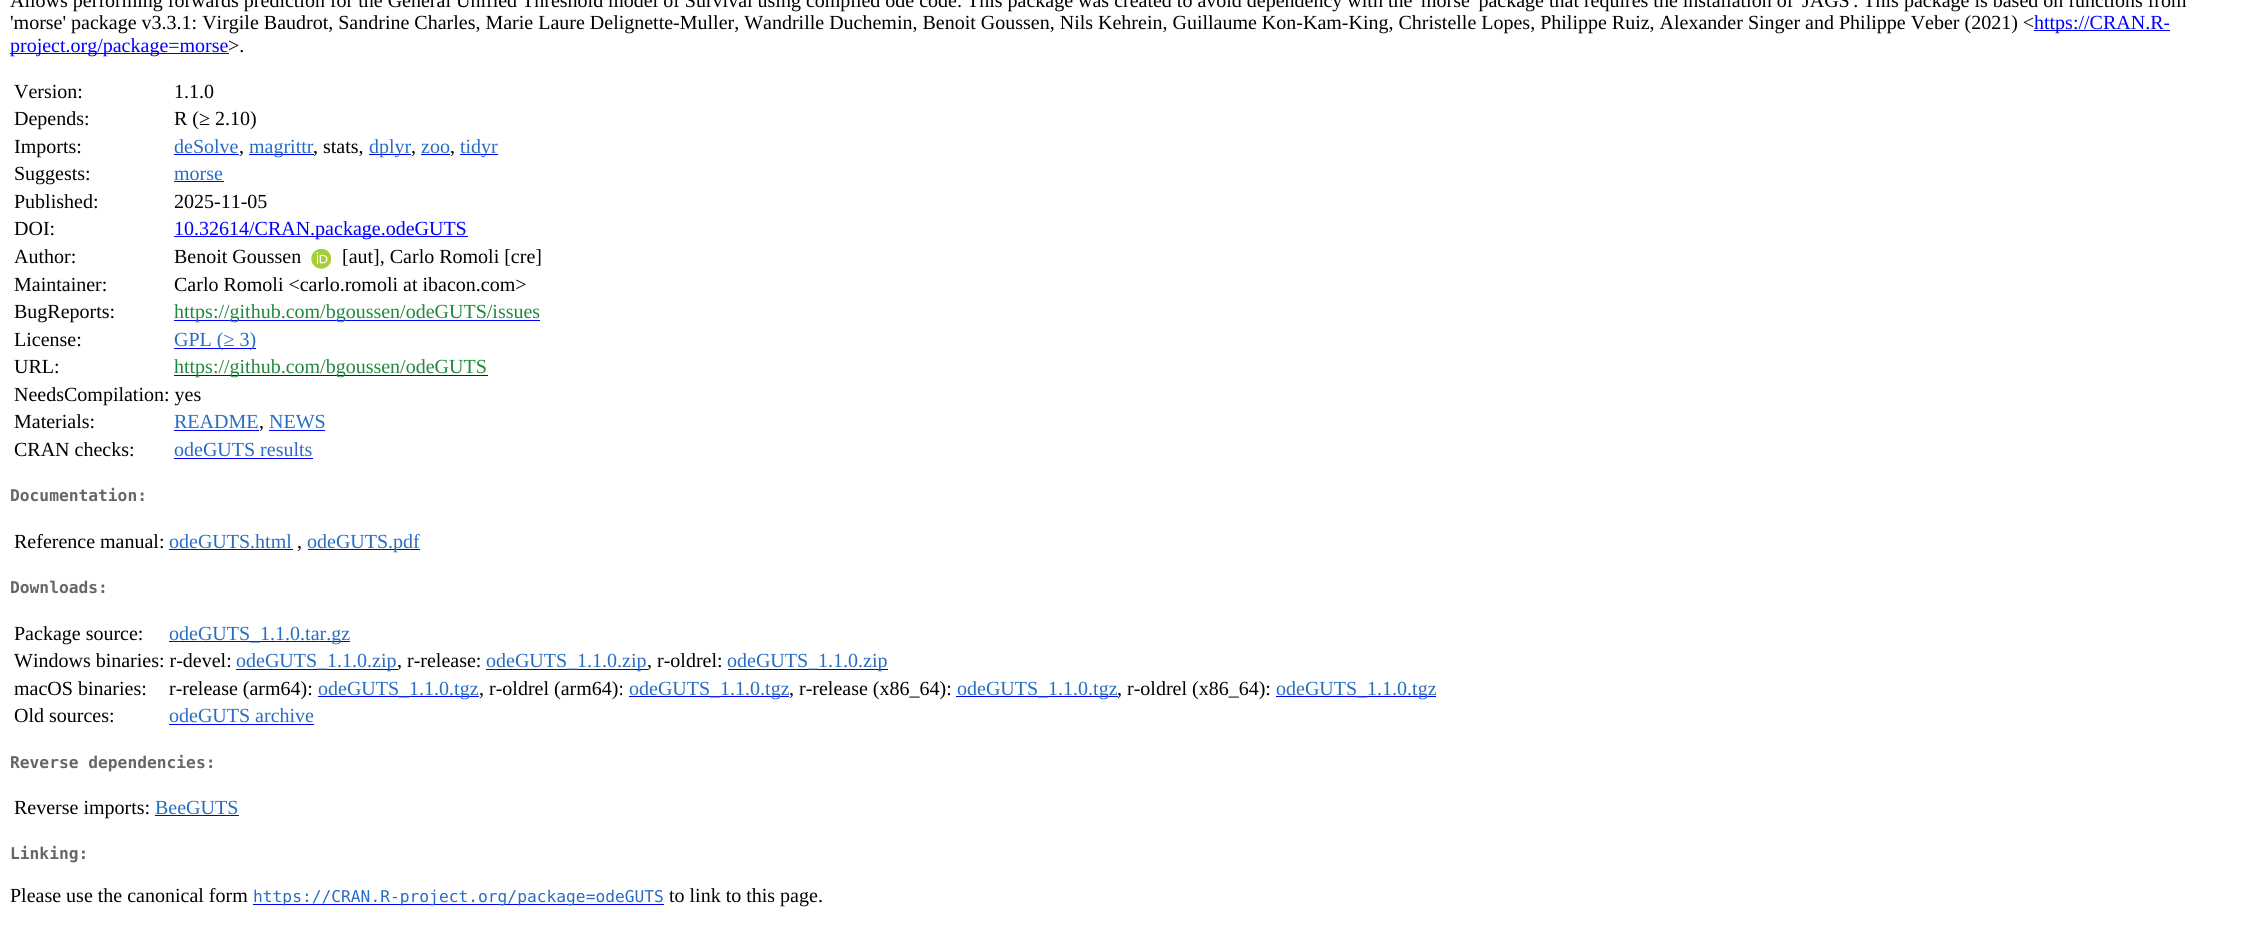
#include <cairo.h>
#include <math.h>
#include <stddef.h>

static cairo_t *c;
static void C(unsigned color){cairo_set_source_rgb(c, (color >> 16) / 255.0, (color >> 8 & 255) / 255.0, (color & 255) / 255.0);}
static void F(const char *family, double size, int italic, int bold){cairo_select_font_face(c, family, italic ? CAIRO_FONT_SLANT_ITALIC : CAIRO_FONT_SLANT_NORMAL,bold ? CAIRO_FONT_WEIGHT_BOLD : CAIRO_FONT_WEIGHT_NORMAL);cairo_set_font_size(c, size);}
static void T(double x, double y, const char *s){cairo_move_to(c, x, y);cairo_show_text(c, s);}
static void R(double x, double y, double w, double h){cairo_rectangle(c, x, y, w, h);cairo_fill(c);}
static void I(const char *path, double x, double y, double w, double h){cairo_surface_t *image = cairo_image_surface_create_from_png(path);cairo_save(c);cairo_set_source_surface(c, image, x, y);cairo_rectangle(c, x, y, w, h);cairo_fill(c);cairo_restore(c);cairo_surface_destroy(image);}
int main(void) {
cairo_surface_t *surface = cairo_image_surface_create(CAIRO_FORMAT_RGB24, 2241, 927);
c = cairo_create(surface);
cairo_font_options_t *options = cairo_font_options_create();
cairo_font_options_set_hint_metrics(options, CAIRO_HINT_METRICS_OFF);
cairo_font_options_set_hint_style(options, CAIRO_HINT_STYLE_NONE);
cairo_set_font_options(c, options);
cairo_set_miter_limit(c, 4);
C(0xffffff);
cairo_paint(c);
F("Liberation Serif",20,0,0);
C(0x000000);
T(10,7,"Allows performing forwards prediction for the General Unified Threshold model of Survival using compiled ode code. This package was created to avoid dependency with the 'morse' package that requires the installation of 'JAGS'. This package is based on functions from");
T(10,29,"'morse' package v3.3.1: Virgile Baudrot, Sandrine Charles, Marie Laure Delignette-Muller, Wandrille Duchemin, Benoit Goussen, Nils Kehrein, Guillaume Kon-Kam-King, Christelle Lopes, Philippe Ruiz, Alexander Singer and Philippe Veber (2021) <");
C(0x0000ff);
R(2034,30,136,1);
T(2034,29,"https://CRAN.R-");
R(10,53,219,1);
T(10,52,"project.org/package=morse");
C(0x000000);
T(228,52,">.");
T(14,98,"Version:");
T(174,98,"1.1.0");
T(14,125,"Depends:");
T(174,125,"R (≥ 2.10)");
T(14,153,"Imports:");
C(0x276dc3);
T(174,153,"deSolve");
C(0x0000ff);
R(174,154,65,1);
C(0x000000);
T(239,153,",");
C(0x0000ff);
R(249,154,65,1);
C(0x276dc3);
T(249,153,"magrittr");
C(0x000000);
T(313,153,", stats,");
C(0x0000ff);
R(369,154,42,1);
C(0x276dc3);
T(369,153,"dplyr");
C(0x000000);
T(411,153,",");
C(0x276dc3);
T(421,153,"zoo");
C(0x0000ff);
R(421,154,29,1);
C(0x000000);
T(450,153,",");
C(0x0000ff);
R(460,154,38,1);
C(0x276dc3);
T(460,153,"tidyr");
C(0x000000);
T(14,180,"Suggests:");
C(0x276dc3);
T(174,180,"morse");
C(0x0000ff);
R(174,181,50,1);
C(0x000000);
T(14,208,"Published:");
T(174,208,"2025-11-05");
T(14,235,"DOI:");
C(0x0000ff);
R(174,236,294,1);
T(174,235,"10.32614/CRAN.package.odeGUTS");
C(0x000000);
T(14,263,"Author:");
T(174,263,"Benoit Goussen");
I("1.png",311,249,20,20);
T(342,263,"[aut], Carlo Romoli [cre]");
T(14,291,"Maintainer:");
T(174,291,"Carlo Romoli <carlo.romoli at ibacon.com>");
T(14,318,"BugReports:");
C(0x0000ff);
R(174,320,366,1);
C(0x1f883d);
T(174,318,"https://github.com/bgoussen/odeGUTS/issues");
C(0x000000);
T(14,346,"License:");
C(0x0000ff);
R(174,348,82,1);
C(0x276dc3);
T(174,346,"GPL (≥ 3)");
C(0x000000);
T(14,373,"URL:");
C(0x0000ff);
R(174,375,314,1);
C(0x1f883d);
T(174,373,"https://github.com/bgoussen/odeGUTS");
C(0x000000);
T(14,401,"NeedsCompilation: yes");
T(14,428,"Materials:");
C(0x276dc3);
T(174,428,"README");
C(0x0000ff);
R(174,430,85,1);
C(0x000000);
T(259,428,",");
C(0x276dc3);
T(269,428,"NEWS");
C(0x0000ff);
R(269,430,56,1);
C(0x000000);
T(14,456,"CRAN checks:");
C(0x276dc3);
T(174,456,"odeGUTS results");
C(0x0000ff);
R(174,458,139,1);
F("DejaVu Sans Mono",16.25,0,1);
C(0x666666);
T(10,501,"Documentation:");
F("Liberation Serif",20,0,0);
C(0x000000);
T(14,548,"Reference manual:");
C(0x276dc3);
T(169,548,"odeGUTS.html");
C(0x0000ff);
R(169,549,124,1);
C(0x000000);
T(297,548,",");
C(0x0000ff);
R(308,549,112,1);
C(0x276dc3);
T(307,548,"odeGUTS.pdf");
F("DejaVu Sans Mono",16.25,0,1);
C(0x666666);
T(10,593,"Downloads:");
F("Liberation Serif",20,0,0);
C(0x000000);
T(14,640,"Package source:");
C(0x0000ff);
R(169,641,181,1);
C(0x276dc3);
T(169,640,"odeGUTS_1.1.0.tar.gz");
C(0x000000);
T(14,667,"Windows binaries: r-devel:");
C(0x0000ff);
R(236,669,162,1);
C(0x276dc3);
T(236,667,"odeGUTS_1.1.0.zip");
C(0x000000);
T(397,667,", r-release:");
C(0x0000ff);
R(486,669,162,1);
C(0x276dc3);
T(486,667,"odeGUTS_1.1.0.zip");
C(0x000000);
T(647,667,", r-oldrel:");
C(0x0000ff);
R(728,669,160,1);
C(0x276dc3);
T(727,667,"odeGUTS_1.1.0.zip");
C(0x000000);
T(14,695,"macOS binaries:");
T(169,695,"r-release (arm64):");
C(0x0000ff);
R(318,696,161,1);
C(0x276dc3);
T(318,695,"odeGUTS_1.1.0.tgz");
C(0x000000);
T(479,695,", r-oldrel (arm64):");
C(0x0000ff);
R(629,696,160,1);
C(0x276dc3);
T(629,695,"odeGUTS_1.1.0.tgz");
C(0x000000);
T(789,695,", r-release (x86_64):");
C(0x0000ff);
R(956,696,162,1);
C(0x276dc3);
T(957,695,"odeGUTS_1.1.0.tgz");
C(0x000000);
T(1117,695,", r-oldrel (x86_64):");
C(0x0000ff);
R(1276,696,160,1);
C(0x276dc3);
T(1276,695,"odeGUTS_1.1.0.tgz");
C(0x000000);
T(14,722,"Old sources:");
C(0x276dc3);
T(169,722,"odeGUTS archive");
C(0x0000ff);
R(169,724,145,1);
F("DejaVu Sans Mono",16.25,0,1);
C(0x666666);
T(10,768,"Reverse dependencies:");
F("Liberation Serif",20,0,0);
C(0x000000);
T(14,814,"Reverse imports:");
C(0x276dc3);
T(155,814,"BeeGUTS");
C(0x0000ff);
R(155,815,84,1);
F("DejaVu Sans Mono",16.25,0,1);
C(0x666666);
T(10,859,"Linking:");
F("Liberation Serif",20,0,0);
C(0x000000);
T(10,902,"Please use the canonical form");
C(0x0000ff);
R(253,904,411,1);
F("DejaVu Sans Mono",16.25,0,0);
C(0x276dc3);
T(253,902,"https://CRAN.R-project.org/package=odeGUTS");
F("Liberation Serif",20,0,0);
C(0x000000);
T(669,902,"to link to this page.");
cairo_surface_write_to_png(surface, "o.png");
cairo_font_options_destroy(options);
cairo_destroy(c);
cairo_surface_destroy(surface);
return 0;
}
